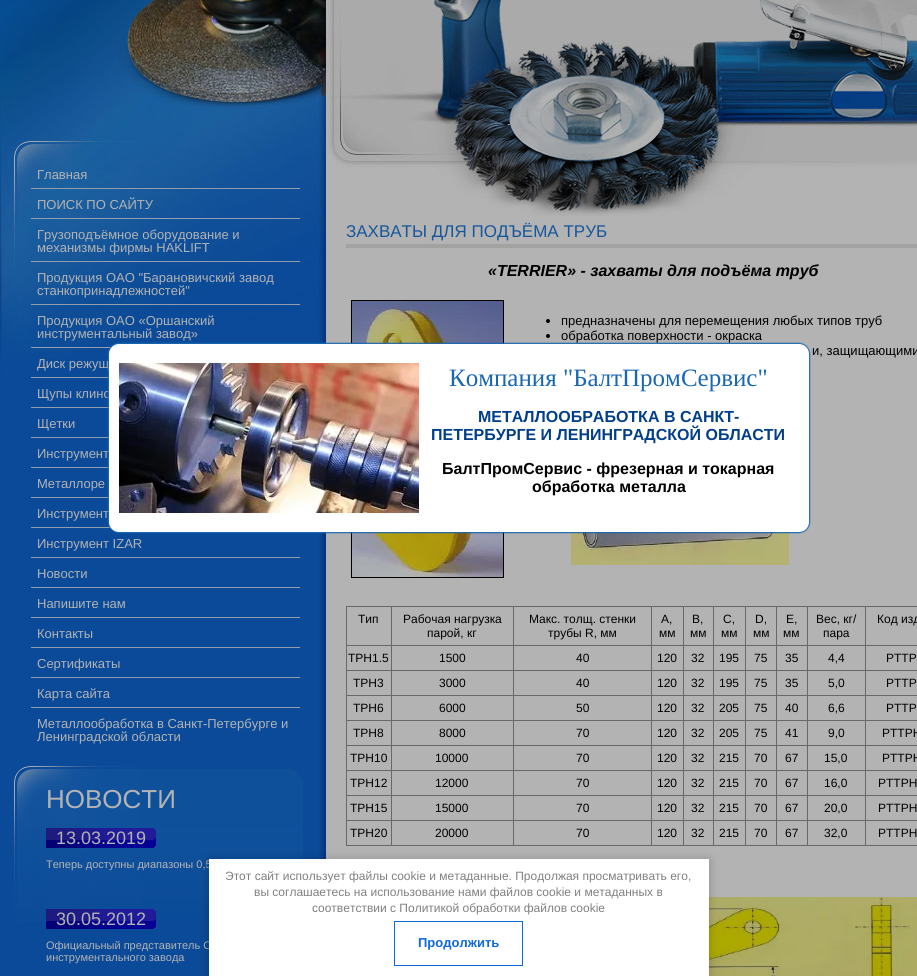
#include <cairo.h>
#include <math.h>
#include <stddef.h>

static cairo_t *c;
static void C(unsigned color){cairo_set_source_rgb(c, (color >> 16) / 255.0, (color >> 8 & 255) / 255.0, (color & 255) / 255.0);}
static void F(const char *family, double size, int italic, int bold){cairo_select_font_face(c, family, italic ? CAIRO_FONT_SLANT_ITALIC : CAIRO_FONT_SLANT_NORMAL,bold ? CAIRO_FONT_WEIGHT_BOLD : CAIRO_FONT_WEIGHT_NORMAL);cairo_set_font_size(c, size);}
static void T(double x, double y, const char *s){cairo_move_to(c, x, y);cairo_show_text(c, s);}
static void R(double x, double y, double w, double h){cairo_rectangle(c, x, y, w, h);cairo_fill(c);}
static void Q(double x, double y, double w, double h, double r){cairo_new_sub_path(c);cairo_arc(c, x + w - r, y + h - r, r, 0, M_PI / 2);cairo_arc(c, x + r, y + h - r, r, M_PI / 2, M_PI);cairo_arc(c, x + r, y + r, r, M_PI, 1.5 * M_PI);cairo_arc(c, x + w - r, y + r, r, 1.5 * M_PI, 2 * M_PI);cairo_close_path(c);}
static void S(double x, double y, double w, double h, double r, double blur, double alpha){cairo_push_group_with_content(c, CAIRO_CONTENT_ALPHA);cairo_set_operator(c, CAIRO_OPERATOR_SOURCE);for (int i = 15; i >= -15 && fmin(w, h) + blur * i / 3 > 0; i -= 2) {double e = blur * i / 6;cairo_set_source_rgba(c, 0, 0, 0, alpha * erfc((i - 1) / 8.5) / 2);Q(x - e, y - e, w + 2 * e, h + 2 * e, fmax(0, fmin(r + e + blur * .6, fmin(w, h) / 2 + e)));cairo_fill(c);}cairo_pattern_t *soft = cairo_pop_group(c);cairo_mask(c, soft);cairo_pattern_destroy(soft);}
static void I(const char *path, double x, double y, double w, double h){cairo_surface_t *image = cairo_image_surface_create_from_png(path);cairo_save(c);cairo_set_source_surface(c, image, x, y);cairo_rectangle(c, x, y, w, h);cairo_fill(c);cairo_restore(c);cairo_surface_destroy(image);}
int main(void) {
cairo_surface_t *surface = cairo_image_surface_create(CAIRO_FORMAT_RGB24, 917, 976);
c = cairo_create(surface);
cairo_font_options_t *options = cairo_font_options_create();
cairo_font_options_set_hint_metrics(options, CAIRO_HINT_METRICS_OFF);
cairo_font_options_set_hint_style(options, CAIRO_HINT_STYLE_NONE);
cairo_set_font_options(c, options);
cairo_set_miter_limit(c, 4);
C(0xb3b3b3);
cairo_paint(c);
I("1.png",0,412,326,564);
I("2.png",0,0,917,412);
C(0x929ead);
R(31,188,269,1);
F("Liberation Sans",13,0,0);
C(0xb3b3b3);
T(37,179,"Главная");
C(0x929ead);
R(31,218,269,1);
C(0xb3b3b3);
T(37,209,"ПОИСК ПО САЙТУ");
C(0x929ead);
R(31,261,269,1);
C(0xb3b3b3);
T(37,239,"Грузоподъёмное оборудование и");
T(37,252,"механизмы фирмы HAKLIFT");
C(0x929ead);
R(31,304,269,1);
C(0xb3b3b3);
T(37,282,"Продукция ОАО \"Барановичский завод");
T(37,295,"станкопринадлежностей\"");
C(0x929ead);
R(31,347,81,1);
C(0xb3b3b3);
T(37,325,"Продукция ОАО «Оршанский");
T(37,338,"инструментальный завод»");
C(0x929ead);
R(31,377,78,1);
C(0xb3b3b3);
T(37,368,"Диск режущ");
C(0x929ead);
R(31,407,78,1);
C(0xb3b3b3);
T(37,398,"Щупы клино");
C(0x929ead);
R(31,437,78,1);
C(0xb3b3b3);
T(37,428,"Щетки");
C(0x929ead);
R(31,467,78,1);
C(0xb3b3b3);
T(37,458,"Инструмент");
C(0x929ead);
R(31,497,78,1);
C(0xb3b3b3);
T(37,488,"Металлоре");
C(0x929ead);
R(31,527,80,1);
C(0xb3b3b3);
T(37,518,"Инструмент");
C(0x929ead);
R(31,557,269,1);
C(0xb3b3b3);
T(37,548,"Инструмент IZAR");
C(0x929ead);
R(31,587,269,1);
C(0xb3b3b3);
T(37,578,"Новости");
C(0x929ead);
R(31,617,269,1);
C(0xb3b3b3);
T(37,608,"Напишите нам");
C(0x929ead);
R(31,647,269,1);
C(0xb3b3b3);
T(37,638,"Контакты");
C(0x929ead);
R(31,677,269,1);
C(0xb3b3b3);
T(37,668,"Сертификаты");
C(0x929ead);
R(31,707,269,1);
C(0xb3b3b3);
T(37,698,"Карта сайта");
T(37,728,"Металлообработка в Санкт-Петербурге и");
T(37,741,"Ленинградской области");
I("3.png",14,766,289,156);
F("Liberation Sans",26,0,0);
T(46,808,"НОВОСТИ");
I("4.png",46,828,110,20);
F("Liberation Sans",18,0,0);
T(56,844,"13.03.2019");
F("Liberation Sans",11,0,0);
T(46,868,"Теперь доступны диапазоны 0,5");
I("5.png",46,909,110,20);
F("Liberation Sans",18,0,0);
T(56,925,"30.05.2012");
F("Liberation Sans",11,0,0);
T(46,949,"Официальный представитель О");
T(46,961,"инструментального завода");
C(0xa2a2a2);
R(346,244,571,4);
F("Liberation Sans",17,0,0);
C(0x16579b);
T(346,237,"ЗАХВАТЫ ДЛЯ ПОДЪЁМА ТРУБ");
F("Liberation Sans",16,1,1);
C(0x000000);
T(488,276,"«TERRIER» - захваты для подъёма труб");
cairo_rectangle(c,351.5,300.5,152,277);
cairo_set_line_width(c,1);
cairo_stroke(c);
I("6.png",352,301,151,276);
cairo_arc(c,548,321,2,0,2 * M_PI);
cairo_fill(c);
F("Liberation Sans",13,0,0);
T(561,325,"предназначены для перемещения любых типов труб");
cairo_new_path(c);
cairo_arc(c,548,336,2,0,2 * M_PI);
cairo_fill(c);
T(561,340,"обработка поверхности - окраска");
T(812,355,"и, защищающими");
I("7.png",571,532,218,33);
C(0x66686c);
R(865,606,52,1);
R(865,645,52,1);
R(865,670,52,1);
R(865,695,52,1);
R(865,720,52,1);
R(865,745,52,1);
R(865,770,52,1);
R(865,795,52,1);
R(865,820,52,1);
R(865,845,52,1);
R(865,820,1,26);
R(807,820,59,1);
R(865,795,1,26);
R(807,795,59,1);
R(865,770,1,26);
R(807,770,59,1);
R(865,745,1,26);
R(807,745,59,1);
R(865,720,1,26);
R(807,720,59,1);
R(865,695,1,26);
R(807,695,59,1);
R(865,670,1,26);
R(807,670,59,1);
R(865,645,1,26);
R(807,645,59,1);
R(865,606,1,40);
R(807,606,59,1);
R(807,845,59,1);
R(807,820,1,26);
R(776,820,32,1);
R(807,795,1,26);
R(776,795,32,1);
R(807,770,1,26);
R(776,770,32,1);
R(807,745,1,26);
R(776,745,32,1);
R(807,720,1,26);
R(776,720,32,1);
R(807,695,1,26);
R(776,695,32,1);
R(807,670,1,26);
R(776,670,32,1);
R(807,645,1,26);
R(776,645,32,1);
R(807,606,1,40);
R(776,606,32,1);
R(776,845,32,1);
R(776,820,1,26);
R(745,820,32,1);
R(776,795,1,26);
R(745,795,32,1);
R(776,770,1,26);
R(745,770,32,1);
R(776,745,1,26);
R(745,745,32,1);
R(776,720,1,26);
R(745,720,32,1);
R(776,695,1,26);
R(745,695,32,1);
R(776,670,1,26);
R(745,670,32,1);
R(776,645,1,26);
R(745,645,32,1);
R(776,606,1,40);
R(745,606,32,1);
R(745,845,32,1);
R(745,820,1,26);
R(713,820,33,1);
R(745,795,1,26);
R(713,795,33,1);
R(745,770,1,26);
R(713,770,33,1);
R(745,745,1,26);
R(713,745,33,1);
R(745,720,1,26);
R(713,720,33,1);
R(745,695,1,26);
R(713,695,33,1);
R(745,670,1,26);
R(713,670,33,1);
R(745,645,1,26);
R(713,645,33,1);
R(745,606,1,40);
R(713,606,33,1);
R(713,845,33,1);
R(713,820,1,26);
R(683,820,31,1);
R(713,795,1,26);
R(683,795,31,1);
R(713,770,1,26);
R(683,770,31,1);
R(713,745,1,26);
R(683,745,31,1);
R(713,720,1,26);
R(683,720,31,1);
R(713,695,1,26);
R(683,695,31,1);
R(713,670,1,26);
R(683,670,31,1);
R(713,645,1,26);
R(683,645,31,1);
R(713,606,1,40);
R(683,606,31,1);
R(683,845,31,1);
R(683,820,1,26);
R(651,820,33,1);
R(683,795,1,26);
R(651,795,33,1);
R(683,770,1,26);
R(651,770,33,1);
R(683,745,1,26);
R(651,745,33,1);
R(683,720,1,26);
R(651,720,33,1);
R(683,695,1,26);
R(651,695,33,1);
R(683,670,1,26);
R(651,670,33,1);
R(683,645,1,26);
R(651,645,33,1);
R(683,606,1,40);
R(651,606,33,1);
R(651,845,33,1);
R(651,820,1,26);
R(513,820,139,1);
R(651,795,1,26);
R(513,795,139,1);
R(651,770,1,26);
R(513,770,139,1);
R(651,745,1,26);
R(513,745,139,1);
R(651,720,1,26);
R(513,720,139,1);
R(651,695,1,26);
R(513,695,139,1);
R(651,670,1,26);
R(513,670,139,1);
R(651,645,1,26);
R(513,645,139,1);
R(651,606,1,40);
R(513,606,139,1);
R(513,845,139,1);
R(513,820,1,26);
R(391,820,123,1);
R(513,795,1,26);
R(391,795,123,1);
R(513,770,1,26);
R(391,770,123,1);
R(513,745,1,26);
R(391,745,123,1);
R(513,720,1,26);
R(391,720,123,1);
R(513,695,1,26);
R(391,695,123,1);
R(513,670,1,26);
R(391,670,123,1);
R(513,645,1,26);
R(391,645,123,1);
R(513,606,1,40);
R(391,606,123,1);
R(391,845,123,1);
R(391,820,1,26);
R(346,820,46,1);
R(391,795,1,26);
R(346,795,46,1);
R(391,770,1,26);
R(346,770,46,1);
R(391,745,1,26);
R(346,745,46,1);
R(391,720,1,26);
R(346,720,46,1);
R(391,695,1,26);
R(346,695,46,1);
R(391,670,1,26);
R(346,670,46,1);
R(391,645,1,26);
R(346,645,46,1);
R(391,606,1,40);
R(346,606,46,1);
R(346,845,46,1);
R(346,820,1,26);
R(346,795,1,26);
R(346,770,1,26);
R(346,745,1,26);
R(346,720,1,26);
R(346,695,1,26);
R(346,670,1,26);
R(346,645,1,26);
R(346,606,1,40);
F("Liberation Sans",12,0,0);
C(0x000000);
T(358,623,"Тип");
T(403,623,"Рабочая нагрузка");
T(427,637,"парой, кг");
T(529,623,"Макс. толщ. стенки");
T(548,637,"трубы R, мм");
T(661,623,"A,");
T(659,637,"мм");
T(692,623,"B,");
T(690,637,"мм");
T(723,623,"C,");
T(721,637,"мм");
T(755,623,"D,");
T(753,637,"мм");
T(786,623,"E,");
T(783,637,"мм");
T(816,623,"Вес, кг/");
T(823,637,"пара");
T(877,623,"Код изд");
T(348,662,"TPH1.5");
T(439,662,"1500");
T(576,662,"40");
T(657,662,"120");
T(691,662,"32");
T(719,662,"195");
T(754,662,"75");
T(785,662,"35");
T(828,662,"4,4");
T(886,662,"PTTP");
T(353,687,"TPH3");
T(439,687,"3000");
T(576,687,"40");
T(657,687,"120");
T(691,687,"32");
T(719,687,"195");
T(754,687,"75");
T(785,687,"35");
T(828,687,"5,0");
T(886,687,"PTTP");
T(353,712,"TPH6");
T(439,712,"6000");
T(576,712,"50");
T(657,712,"120");
T(691,712,"32");
T(719,712,"205");
T(754,712,"75");
T(785,712,"40");
T(828,712,"6,6");
T(886,712,"PTTP");
T(353,737,"TPH8");
T(439,737,"8000");
T(576,737,"70");
T(657,737,"120");
T(691,737,"32");
T(719,737,"205");
T(754,737,"75");
T(785,737,"41");
T(828,737,"9,0");
T(882,737,"PTTPH");
T(350,762,"TPH10");
T(435,762,"10000");
T(576,762,"70");
T(657,762,"120");
T(691,762,"32");
T(719,762,"215");
T(754,762,"70");
T(785,762,"67");
T(824,762,"15,0");
T(882,762,"PTTPH");
T(350,787,"TPH12");
T(435,787,"12000");
T(576,787,"70");
T(657,787,"120");
T(691,787,"32");
T(719,787,"215");
T(754,787,"70");
T(785,787,"67");
T(824,787,"16,0");
T(878,787,"PTTPH");
T(350,812,"TPH15");
T(435,812,"15000");
T(576,812,"70");
T(657,812,"120");
T(691,812,"32");
T(719,812,"215");
T(754,812,"70");
T(785,812,"67");
T(824,812,"20,0");
T(878,812,"PTTPH");
T(350,837,"TPH20");
T(435,837,"20000");
T(576,837,"70");
T(657,837,"120");
T(691,837,"32");
T(719,837,"215");
T(754,837,"70");
T(785,837,"67");
T(824,837,"32,0");
T(878,837,"PTTPH");
I("8.png",709,897,208,79);
C(0x1867b2);
S(108,343,702,190,11,.5,1);
C(0xffffff);
Q(109,344,700,188,10);
cairo_fill(c);
I("9.png",119,363,300,150);
F("Liberation Serif",25,0,0);
C(0x1867b2);
T(449,386,"Компания \"БалтПромСервис\"");
F("Liberation Sans",16,0,1);
C(0x023f8a);
T(478,422,"МЕТАЛЛООБРАБОТКА В САНКТ-");
T(431,440,"ПЕТЕРБУРГЕ И ЛЕНИНГРАДСКОЙ ОБЛАСТИ");
C(0x000000);
T(442,474,"БалтПромСервис - фрезерная и токарная");
T(532,492,"обработка металла");
C(0x000000);
S(209,860,500,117,0,5,.23);
C(0xffffff);
R(209,859,500,117);
F("Liberation Sans",12,0,0);
C(0x808080);
T(225,880,"Этот сайт использует файлы cookie и метаданные. Продолжая просматривать его,");
T(254,896,"вы соглашаетесь на использование нами файлов cookie и метаданных в");
T(312,912,"соответствии с Политикой обработки файлов cookie");
cairo_rectangle(c,394.5,921.5,128,44);
C(0x0e69d9);
cairo_stroke(c);
F("Liberation Sans",13,0,1);
T(418,947,"Продолжить");
cairo_surface_write_to_png(surface, "o.png");
cairo_font_options_destroy(options);
cairo_destroy(c);
cairo_surface_destroy(surface);
return 0;
}
